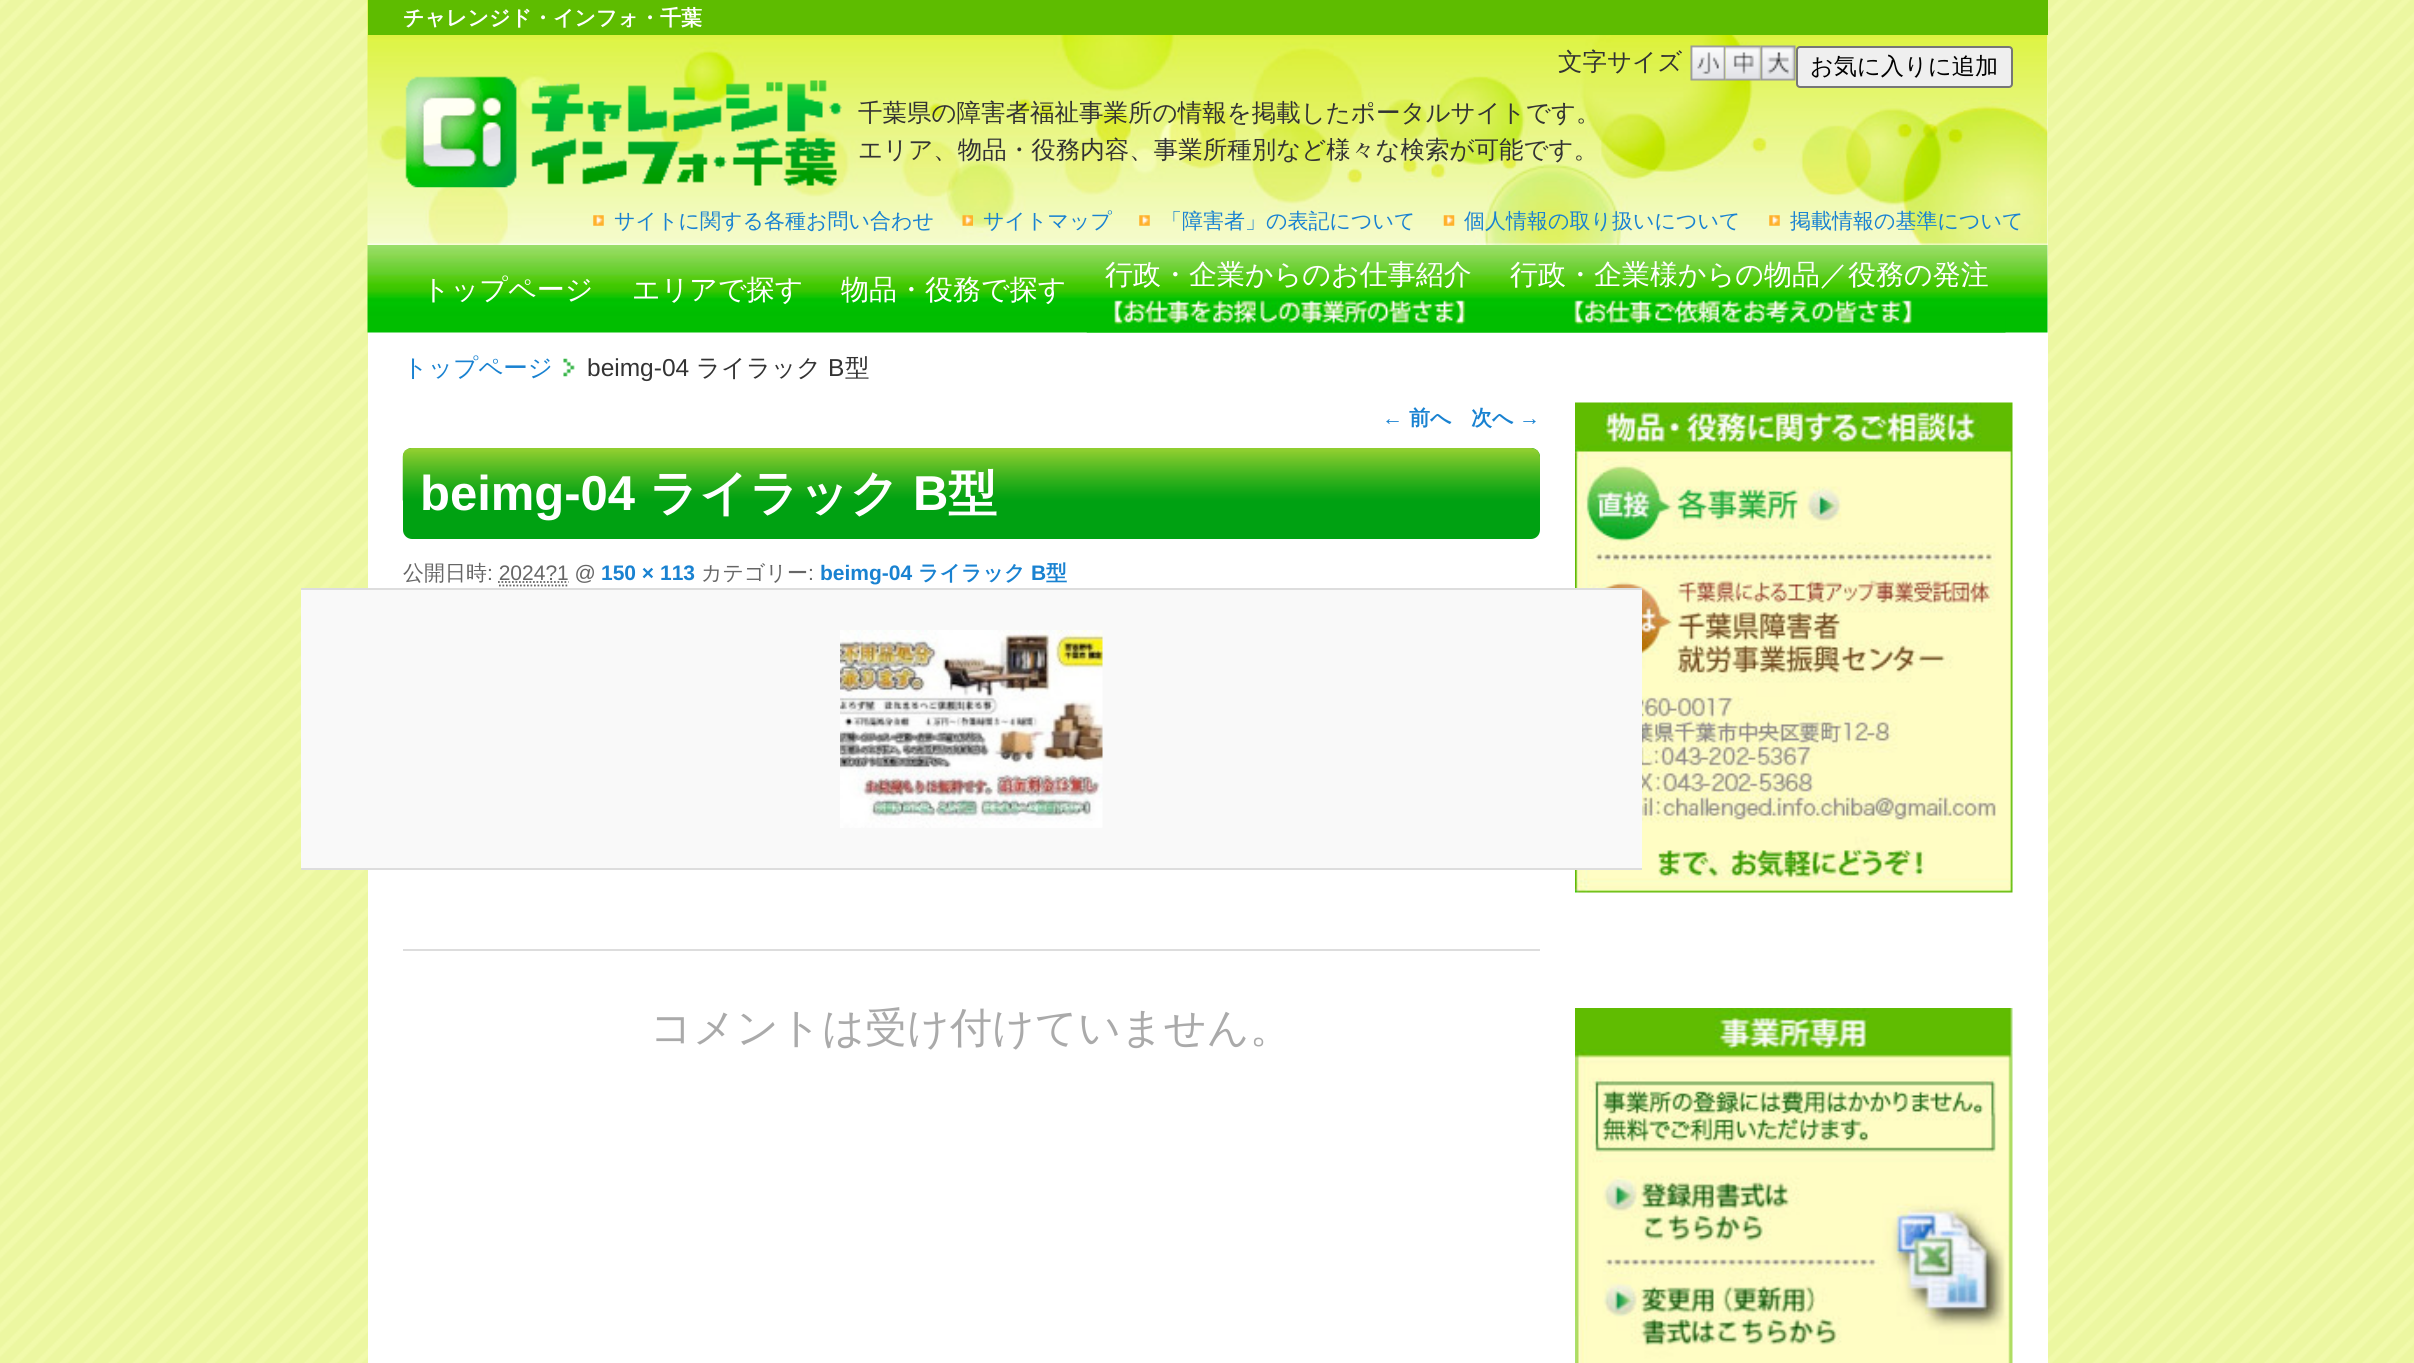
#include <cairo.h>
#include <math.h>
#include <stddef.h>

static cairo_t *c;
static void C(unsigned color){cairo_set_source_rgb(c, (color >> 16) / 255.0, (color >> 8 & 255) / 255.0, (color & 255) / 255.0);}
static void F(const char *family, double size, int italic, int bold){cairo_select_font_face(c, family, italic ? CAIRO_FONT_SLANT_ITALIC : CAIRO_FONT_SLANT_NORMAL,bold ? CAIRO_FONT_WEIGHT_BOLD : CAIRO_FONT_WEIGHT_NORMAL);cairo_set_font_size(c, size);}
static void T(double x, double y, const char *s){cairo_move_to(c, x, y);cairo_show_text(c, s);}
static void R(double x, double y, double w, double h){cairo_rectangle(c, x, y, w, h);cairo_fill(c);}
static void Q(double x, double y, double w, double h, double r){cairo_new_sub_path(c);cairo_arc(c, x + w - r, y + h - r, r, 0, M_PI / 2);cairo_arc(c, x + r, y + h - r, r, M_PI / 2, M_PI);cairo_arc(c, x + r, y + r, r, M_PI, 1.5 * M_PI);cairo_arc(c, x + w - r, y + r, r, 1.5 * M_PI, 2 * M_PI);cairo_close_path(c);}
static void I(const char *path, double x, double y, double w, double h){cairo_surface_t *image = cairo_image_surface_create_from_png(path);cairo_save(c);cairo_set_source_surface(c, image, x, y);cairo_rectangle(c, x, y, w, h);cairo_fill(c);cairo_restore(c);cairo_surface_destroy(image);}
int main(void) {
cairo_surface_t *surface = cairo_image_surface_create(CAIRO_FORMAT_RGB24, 2414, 1363);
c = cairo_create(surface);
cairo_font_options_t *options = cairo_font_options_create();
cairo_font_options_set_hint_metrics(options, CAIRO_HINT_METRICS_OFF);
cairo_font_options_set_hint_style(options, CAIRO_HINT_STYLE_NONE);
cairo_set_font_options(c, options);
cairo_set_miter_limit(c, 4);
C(0xffffff);
cairo_paint(c);
I("1.png",0,0,2414,1363);
C(0xffffff);
R(368,35,1680,1328);
I("2.png",367,0,1681,245);
C(0x5ebc00);
R(368,0,1680,35);
F("WenQuanYi Zen Hei",21,0,1);
C(0xffffff);
T(403,25,"チャレンジド・インフォ・千葉");
I("3.png",405,76,437,112);
F("WenQuanYi Zen Hei Medium",24.5,0,0);
C(0x333333);
T(858,121,"千葉県の障害者福祉事業所の情報を掲載したポータルサイトです。");
T(858,158,"エリア、物品・役務内容、事業所種別など様々な検索が可能です。");
T(1558,70,"文字サイズ");
I("4.png",1690,45,36,36);
I("5.png",1725,45,36,36);
I("6.png",1760,45,36,36);
C(0xefefef);
Q(1797,47,215,40,3);
cairo_fill_preserve(c);
C(0x767676);
cairo_stroke(c);
F("WenQuanYi Zen Hei Medium",23.25,0,0);
C(0x000000);
T(1810,74,"お気に入りに追加");
I("7.png",593,215,11,11);
F("WenQuanYi Zen Hei Medium",21,0,0);
C(0x1982d1);
T(614,228,"サイトに関する各種お問い合わせ");
I("8.png",962,215,11,11);
T(983,228,"サイトマップ");
I("7.png",1139,215,11,11);
T(1161,228,"「障害者」の表記について");
I("9.png",1443,215,12,11);
T(1464,228,"個人情報の取り扱いについて");
I("10.png",1769,215,11,11);
T(1790,228,"掲載情報の基準について");
I("11.png",367,245,1681,88);
F("WenQuanYi Zen Hei Medium",28,0,0);
C(0xffffff);
T(422,299,"トップページ");
T(632,299,"エリアで探す");
T(841,299,"物品・役務で探す");
I("12.png",1086,300,405,33);
T(1105,284,"行政・企業からのお仕事紹介");
I("13.png",1491,300,515,33);
T(1510,284,"行政・企業様からの物品／役務の発注");
F("WenQuanYi Zen Hei Medium",24.5,0,0);
C(0x1982d1);
T(403,376,"トップページ");
I("14.png",563,358,12,19);
F("Liberation Sans",24.5,0,0);
C(0x333333);
T(587,376,"beimg-04");
F("WenQuanYi Zen Hei Medium",24.5,0,0);
T(696,376,"ライラック");
F("Liberation Sans",24.5,0,0);
T(828,376,"B");
F("WenQuanYi Zen Hei Medium",24.5,0,0);
T(845,376,"型");
F("Liberation Sans",21,0,1);
C(0x1982d1);
T(1382,425,"←");
F("WenQuanYi Zen Hei",21,0,1);
T(1409,425,"前へ");
T(1471,425,"次へ");
F("Liberation Sans",21,0,1);
T(1519,425,"→");
C(0xdddddd);
R(403,949,1137,2);
C(0x00a112);
Q(403,448,1137,91,9);
cairo_fill(c);
I("15.png",402,448,1138,53);
F("Liberation Sans",49,0,1);
C(0xffffff);
T(420,510,"beimg-04");
F("WenQuanYi Zen Hei",49,0,1);
T(649,510,"ライラック");
F("Liberation Sans",49,0,1);
T(913,510,"B");
F("WenQuanYi Zen Hei",49,0,1);
T(948,510,"型");
F("WenQuanYi Zen Hei Medium",21,0,0);
C(0x666666);
T(403,580,"公開日時");
F("Liberation Sans",21,0,0);
T(487,580,": 2024?1 @");
F("Liberation Sans",21,0,1);
C(0x1982d1);
T(601,580,"150 × 113");
F("WenQuanYi Zen Hei Medium",21,0,0);
C(0x666666);
T(701,580,"カテゴリー");
F("Liberation Sans",21,0,0);
T(808,580,":");
F("Liberation Sans",21,0,1);
C(0x1982d1);
T(820,580,"beimg-04");
F("WenQuanYi Zen Hei",21,0,1);
T(918,580,"ライラック");
F("Liberation Sans",21,0,1);
T(1031,580,"B");
F("WenQuanYi Zen Hei",21,0,1);
T(1046,580,"型");
cairo_new_path(c);
cairo_move_to(c,498,582);
cairo_line_to(c,568.5,582);
C(0x666666);
cairo_set_line_width(c,1.8);
cairo_set_dash(c,(double[]){1.75,1.75},2,0);
cairo_stroke(c);
cairo_new_path(c);
cairo_move_to(c,499,585.5);
cairo_line_to(c,569,585.5);
cairo_stroke(c);
I("17.png",1575,402,438,491);
C(0xf9f9f9);
R(301,590,1341,278);
C(0xdddddd);
R(301,588,1341,2);
R(301,868,1341,2);
I("16.png",840,630,263,198);
F("WenQuanYi Zen Hei Medium",42,0,0);
C(0xaaaaaa);
T(650,1042,"コメントは受け付けていません。");
I("18.png",1575,1008,438,355);
cairo_surface_write_to_png(surface, "o.png");
cairo_font_options_destroy(options);
cairo_destroy(c);
cairo_surface_destroy(surface);
return 0;
}
